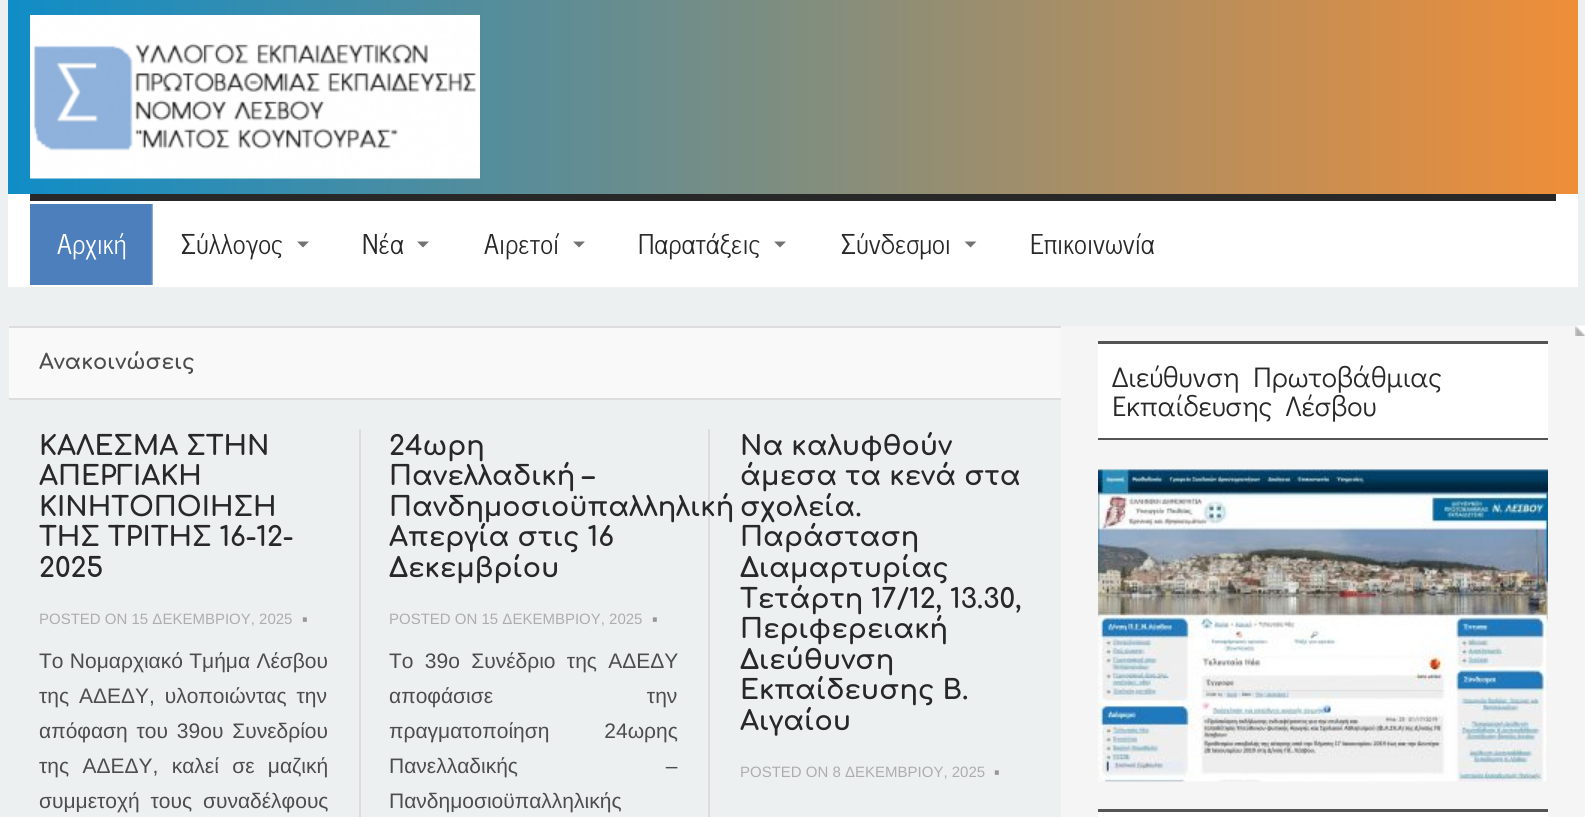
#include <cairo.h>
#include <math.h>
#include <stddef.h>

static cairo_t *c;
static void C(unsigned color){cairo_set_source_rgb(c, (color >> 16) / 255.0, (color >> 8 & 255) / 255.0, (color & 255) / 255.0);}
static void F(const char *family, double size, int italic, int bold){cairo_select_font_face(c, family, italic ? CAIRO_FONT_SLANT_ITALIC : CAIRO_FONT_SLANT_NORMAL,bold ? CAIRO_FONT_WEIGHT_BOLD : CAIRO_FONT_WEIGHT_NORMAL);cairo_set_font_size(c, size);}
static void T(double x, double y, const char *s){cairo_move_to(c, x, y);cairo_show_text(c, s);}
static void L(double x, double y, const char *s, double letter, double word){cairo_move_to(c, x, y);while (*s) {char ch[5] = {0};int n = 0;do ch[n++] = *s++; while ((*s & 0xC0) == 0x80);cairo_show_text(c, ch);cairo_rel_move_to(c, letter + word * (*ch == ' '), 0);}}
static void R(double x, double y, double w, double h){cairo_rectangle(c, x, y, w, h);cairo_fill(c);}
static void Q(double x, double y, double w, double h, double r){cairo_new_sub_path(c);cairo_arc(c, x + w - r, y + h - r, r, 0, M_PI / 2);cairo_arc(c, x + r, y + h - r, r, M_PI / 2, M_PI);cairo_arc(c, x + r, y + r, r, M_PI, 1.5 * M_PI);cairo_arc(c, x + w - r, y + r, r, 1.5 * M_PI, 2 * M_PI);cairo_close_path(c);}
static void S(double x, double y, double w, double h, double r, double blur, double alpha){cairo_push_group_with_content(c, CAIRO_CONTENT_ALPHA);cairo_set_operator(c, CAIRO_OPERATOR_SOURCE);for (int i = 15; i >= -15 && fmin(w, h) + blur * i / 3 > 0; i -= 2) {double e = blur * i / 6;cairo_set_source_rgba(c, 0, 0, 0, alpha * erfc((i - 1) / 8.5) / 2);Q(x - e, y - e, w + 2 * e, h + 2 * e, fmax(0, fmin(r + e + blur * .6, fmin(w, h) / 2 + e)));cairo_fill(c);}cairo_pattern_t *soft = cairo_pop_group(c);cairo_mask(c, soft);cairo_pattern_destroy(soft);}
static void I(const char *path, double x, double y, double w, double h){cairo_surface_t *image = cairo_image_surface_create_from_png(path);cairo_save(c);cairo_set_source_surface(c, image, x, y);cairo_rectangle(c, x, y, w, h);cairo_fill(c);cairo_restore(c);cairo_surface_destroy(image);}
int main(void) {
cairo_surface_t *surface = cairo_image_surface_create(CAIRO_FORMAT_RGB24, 1585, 817);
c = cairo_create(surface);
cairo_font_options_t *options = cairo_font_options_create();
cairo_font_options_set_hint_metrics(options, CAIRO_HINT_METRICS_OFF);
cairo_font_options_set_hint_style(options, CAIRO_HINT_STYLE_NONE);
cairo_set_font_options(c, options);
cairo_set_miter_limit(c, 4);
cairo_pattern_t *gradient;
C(0xecf0f1);
cairo_paint(c);
C(0xffffff);
R(8,194,1570,93);
C(0x282828);
R(30,194,1526,7);
gradient = cairo_pattern_create_linear(7.5,97,1578,97);
cairo_pattern_add_color_stop_rgba(gradient,0,0.063,0.553,0.78,1);
cairo_pattern_add_color_stop_rgba(gradient,1,0.937,0.557,0.22,1);
cairo_set_source(c,gradient);
cairo_pattern_destroy(gradient);
R(8,0,1570,194);
I("1.png",30,15,450,164);
C(0x4d7fbd);
R(30,204,123,81);
F("News Cycle",27,0,0);
C(0xffffff);
T(57,254,"Αρχική");
cairo_save(c);
cairo_set_fill_rule(c,CAIRO_FILL_RULE_EVEN_ODD);
cairo_new_path(c);
cairo_move_to(c,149,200);
cairo_line_to(c,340,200);
cairo_line_to(c,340,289);
cairo_line_to(c,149,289);
cairo_close_path(c);
cairo_move_to(c,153,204);
cairo_line_to(c,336,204);
cairo_line_to(c,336,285);
cairo_line_to(c,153,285);
cairo_close_path(c);
cairo_clip(c);
C(0xffffff);
S(153,204,183,81,0,1,1);
cairo_restore(c);
C(0x282828);
T(181,254,"Σύλλογος");
C(0x727272);
cairo_new_path(c);
cairo_move_to(c,297,241.5);
cairo_line_to(c,309,241.5);
cairo_line_to(c,303,247.5);
cairo_close_path(c);
cairo_fill(c);
C(0x282828);
T(362,254,"Νέα");
C(0x727272);
cairo_new_path(c);
cairo_move_to(c,417,241.5);
cairo_line_to(c,429,241.5);
cairo_line_to(c,423,247.5);
cairo_close_path(c);
cairo_fill(c);
C(0x282828);
T(484,254,"Αιρετοί");
C(0x727272);
cairo_new_path(c);
cairo_move_to(c,573,241.5);
cairo_line_to(c,585,241.5);
cairo_line_to(c,579,247.5);
cairo_close_path(c);
cairo_fill(c);
C(0x282828);
T(638,254,"Παρατάξεις");
C(0x727272);
cairo_new_path(c);
cairo_move_to(c,774,241.5);
cairo_line_to(c,786,241.5);
cairo_line_to(c,780,247.5);
cairo_close_path(c);
cairo_fill(c);
C(0x282828);
T(841,254,"Σύνδεσμοι");
C(0x727272);
cairo_new_path(c);
cairo_move_to(c,964.5,241.5);
cairo_line_to(c,976.5,241.5);
cairo_line_to(c,970.5,247.5);
cairo_close_path(c);
cairo_fill(c);
C(0x282828);
T(1030,254,"Επικοινωνία");
C(0xf9f9f9);
R(9,328,1052,70);
C(0xdddddd);
R(9,326,1052,2);
R(9,398,1052,2);
F("Comfortaa",21,0,1);
C(0x4d4d4d);
T(39,369,"Ανακοινώσεις");
C(0xdddddd);
R(359,429,2,388);
F("Comfortaa",27,0,1);
C(0x282828);
T(39,455,"ΚΑΛΕΣΜΑ ΣΤΗΝ");
T(39,485,"ΑΠΕΡΓΙΑΚΗ");
T(39,516,"ΚΙΝΗΤΟΠΟΙΗΣΗ");
T(39,546,"ΤΗΣ ΤΡΙΤΗΣ 16-12-");
T(39,577,"2025");
F("Liberation Sans",15,0,0);
C(0xadadad);
T(39,624,"POSTED ON 15 ΔΕΚΕΜΒΡΙΟΥ, 2025");
F("Liberation Sans",42,0,0);
C(0x979797);
T(299,631,"∙");
F("Liberation Sans",21,0,0);
C(0x4d4d4d);
L(39,668,"Το Νομαρχιακό Τμήμα Λέσβου",0,.5);
L(39,703,"της ΑΔΕΔΥ, υλοποιώντας την",0,4);
L(39,738,"απόφαση του 39ου Συνεδρίου",0,3);
L(39,773,"της ΑΔΕΔΥ, καλεί σε μαζική",0,7.5);
L(39,808,"συμμετοχή τους συναδέλφους",0,5);
C(0xdddddd);
R(708,429,2,388);
F("Comfortaa",27,0,1);
C(0x282828);
T(389,455,"24ωρη");
T(389,485,"Πανελλαδική –");
T(389,516,"Πανδημοσιοϋπαλληλική");
T(389,546,"Απεργία στις 16");
T(389,577,"Δεκεμβρίου");
F("Liberation Sans",15,0,0);
C(0xadadad);
T(389,624,"POSTED ON 15 ΔΕΚΕΜΒΡΙΟΥ, 2025");
F("Liberation Sans",42,0,0);
C(0x979797);
T(649,631,"∙");
F("Liberation Sans",21,0,0);
C(0x4d4d4d);
L(389,668,"Το 39ο Συνέδριο της ΑΔΕΔΥ",0,5.5);
L(389,703,"αποφάσισε την",0,148);
L(389,738,"πραγματοποίηση 24ωρης",0,49);
L(389,773,"Πανελλαδικής –",0,142);
T(389,808,"Πανδημοσιοϋπαλληλικής");
F("Comfortaa",27,0,1);
C(0x282828);
T(740,455,"Να καλυφθούν");
T(740,485,"άμεσα τα κενά στα");
T(740,516,"σχολεία.");
T(740,546,"Παράσταση");
T(740,577,"Διαμαρτυρίας");
T(740,608,"Τετάρτη 17/12, 13.30,");
T(740,638,"Περιφερειακή");
T(740,669,"Διεύθυνση");
T(740,699,"Εκπαίδευσης Β.");
T(740,730,"Αιγαίου");
F("Liberation Sans",15,0,0);
C(0xadadad);
T(740,777,"POSTED ON 8 ΔΕΚΕΜΒΡΙΟΥ, 2025");
F("Liberation Sans",42,0,0);
C(0x979797);
T(991,784,"∙");
C(0xf5f5f5);
R(1061,326,524,491);
I("2.png",1575,325,10,11);
C(0xffffff);
R(1098,344,450,94);
C(0x545454);
R(1098,341,450,3);
R(1098,438,450,2);
F("Didact Gothic",28.5,0,0);
C(0x282828);
L(1112,387,"Διεύθυνση Πρωτοβάθμιας",0,7);
L(1112,416,"Εκπαίδευσης Λέσβου",0,7);
I("3.png",1098,469,450,313);
C(0xffffff);
R(1098,812,450,5);
C(0x545454);
R(1098,809,450,3);
cairo_surface_write_to_png(surface, "o.png");
cairo_font_options_destroy(options);
cairo_destroy(c);
cairo_surface_destroy(surface);
return 0;
}
